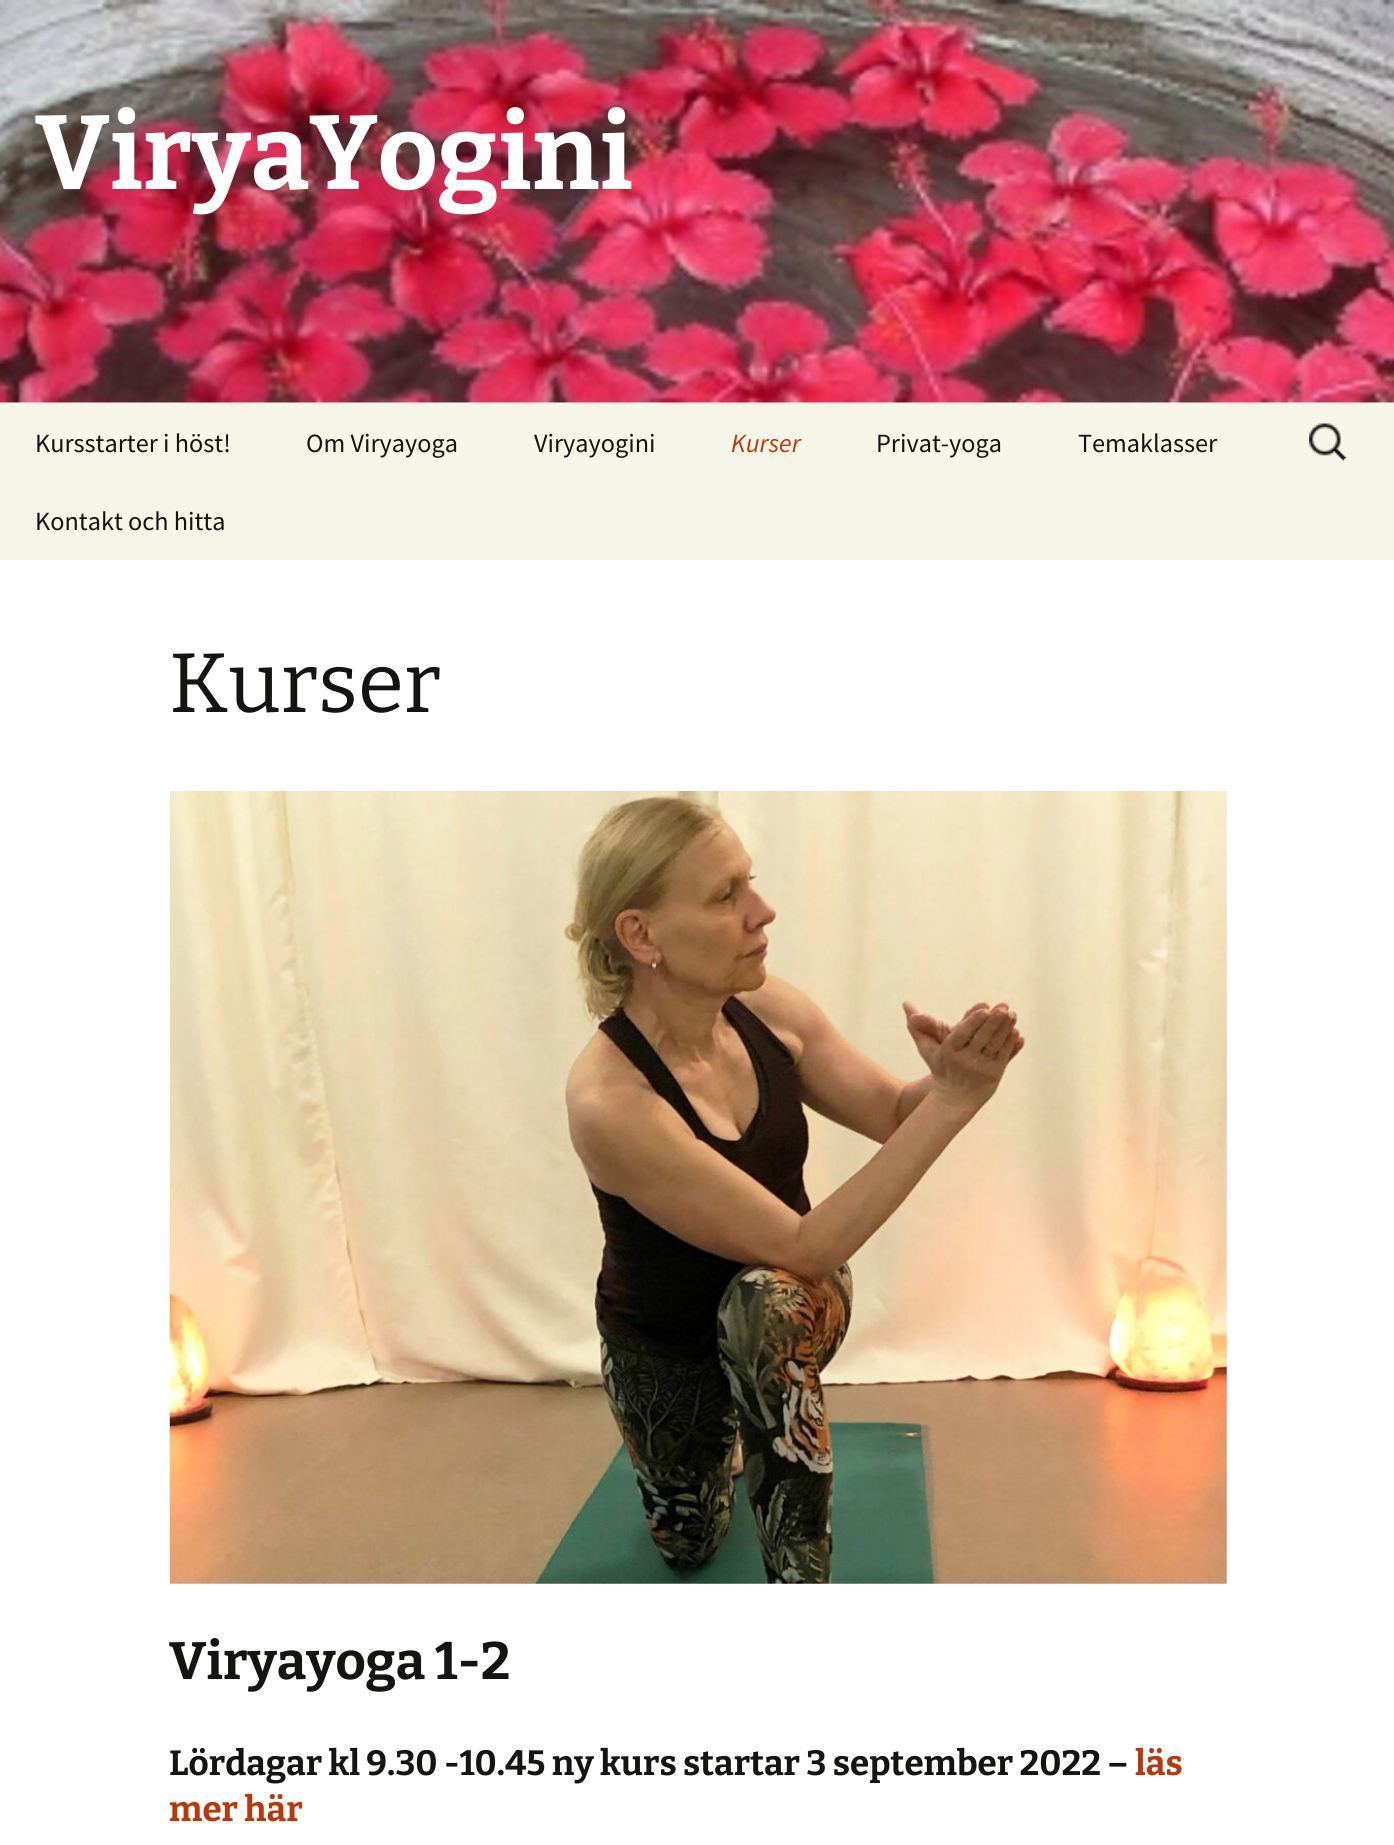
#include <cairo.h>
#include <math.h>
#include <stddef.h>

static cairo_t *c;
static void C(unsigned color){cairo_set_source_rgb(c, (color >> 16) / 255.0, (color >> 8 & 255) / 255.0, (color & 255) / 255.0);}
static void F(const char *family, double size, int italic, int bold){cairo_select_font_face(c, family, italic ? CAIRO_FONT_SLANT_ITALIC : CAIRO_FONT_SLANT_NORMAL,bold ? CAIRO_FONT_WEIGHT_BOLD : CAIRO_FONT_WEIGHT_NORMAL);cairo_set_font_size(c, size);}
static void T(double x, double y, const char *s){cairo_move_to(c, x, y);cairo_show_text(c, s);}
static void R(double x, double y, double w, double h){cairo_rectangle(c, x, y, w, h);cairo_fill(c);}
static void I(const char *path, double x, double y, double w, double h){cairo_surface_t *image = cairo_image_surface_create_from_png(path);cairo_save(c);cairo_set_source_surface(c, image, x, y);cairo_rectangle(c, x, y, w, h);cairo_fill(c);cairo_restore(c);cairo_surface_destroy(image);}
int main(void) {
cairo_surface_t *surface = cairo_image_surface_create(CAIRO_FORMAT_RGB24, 1394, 1845);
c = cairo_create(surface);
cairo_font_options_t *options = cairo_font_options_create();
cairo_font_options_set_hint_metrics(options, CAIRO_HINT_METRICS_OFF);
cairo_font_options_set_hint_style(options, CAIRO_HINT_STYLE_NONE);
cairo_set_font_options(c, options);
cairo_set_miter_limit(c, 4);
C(0xffffff);
cairo_paint(c);
I("1.png",0,0,1394,403);
F("Bitter",105,0,1);
C(0xffffff);
T(35,189,"ViryaYogini");
C(0xf7f5e7);
R(0,403,1394,157);
F("Source Sans Pro",26.25,0,0);
C(0x141412);
T(35,452,"Kursstarter i höst!");
T(306,452,"Om Viryayoga");
T(534,452,"Viryayogini");
F("Source Sans Pro",26.25,1,0);
C(0xbc360a);
T(731,452,"Kurser");
F("Source Sans Pro",26.25,0,0);
C(0x141412);
T(876,452,"Privat-yoga");
T(1078,452,"Temaklasser");
T(35,530,"Kontakt och hitta");
I("2.png",1309,423,38,38);
F("Bitter",84,0,0);
T(169,712,"Kurser");
I("3.png",169,791,1058,793);
F("Bitter",52.5,0,1);
T(169,1679,"Viryayoga 1-2");
F("Bitter",35,0,1);
T(169,1775,"Lördagar kl 9.30 -10.45 ny kurs startar 3 september 2022 –");
C(0xbc360a);
T(1135,1775,"läs");
T(169,1821,"mer här");
cairo_surface_write_to_png(surface, "o.png");
cairo_font_options_destroy(options);
cairo_destroy(c);
cairo_surface_destroy(surface);
return 0;
}
